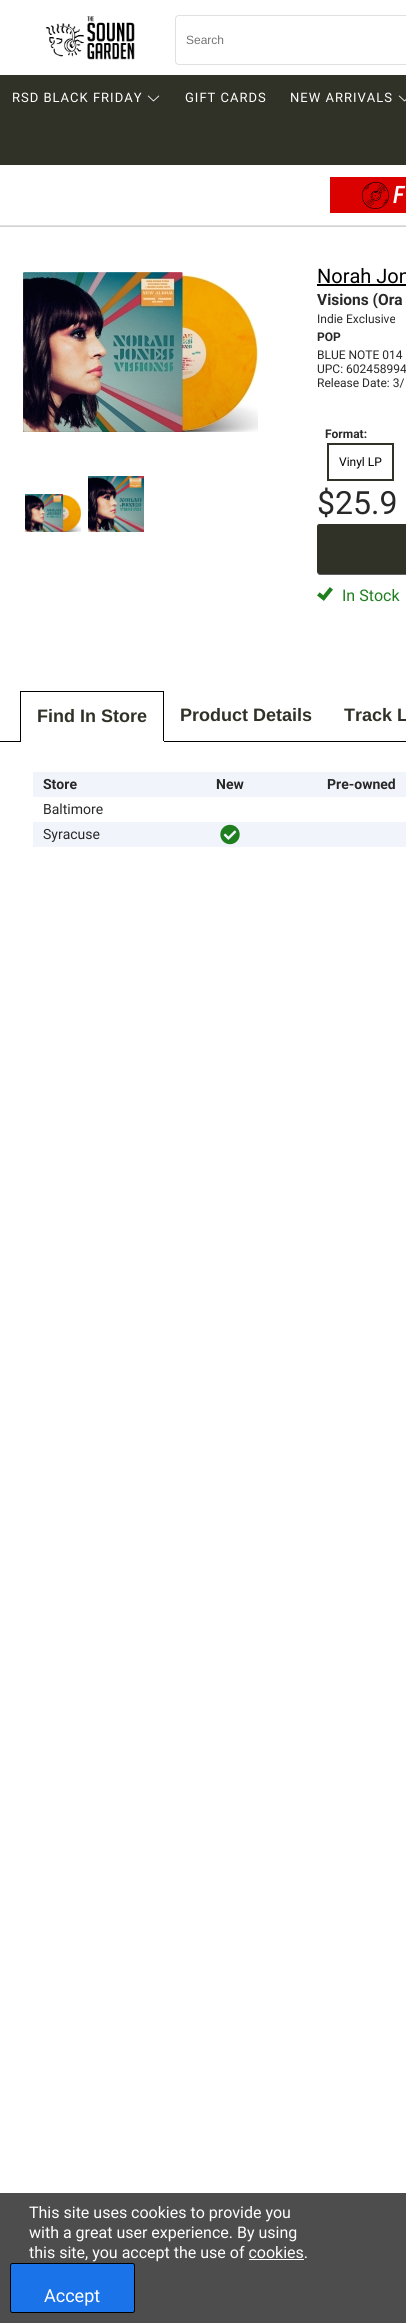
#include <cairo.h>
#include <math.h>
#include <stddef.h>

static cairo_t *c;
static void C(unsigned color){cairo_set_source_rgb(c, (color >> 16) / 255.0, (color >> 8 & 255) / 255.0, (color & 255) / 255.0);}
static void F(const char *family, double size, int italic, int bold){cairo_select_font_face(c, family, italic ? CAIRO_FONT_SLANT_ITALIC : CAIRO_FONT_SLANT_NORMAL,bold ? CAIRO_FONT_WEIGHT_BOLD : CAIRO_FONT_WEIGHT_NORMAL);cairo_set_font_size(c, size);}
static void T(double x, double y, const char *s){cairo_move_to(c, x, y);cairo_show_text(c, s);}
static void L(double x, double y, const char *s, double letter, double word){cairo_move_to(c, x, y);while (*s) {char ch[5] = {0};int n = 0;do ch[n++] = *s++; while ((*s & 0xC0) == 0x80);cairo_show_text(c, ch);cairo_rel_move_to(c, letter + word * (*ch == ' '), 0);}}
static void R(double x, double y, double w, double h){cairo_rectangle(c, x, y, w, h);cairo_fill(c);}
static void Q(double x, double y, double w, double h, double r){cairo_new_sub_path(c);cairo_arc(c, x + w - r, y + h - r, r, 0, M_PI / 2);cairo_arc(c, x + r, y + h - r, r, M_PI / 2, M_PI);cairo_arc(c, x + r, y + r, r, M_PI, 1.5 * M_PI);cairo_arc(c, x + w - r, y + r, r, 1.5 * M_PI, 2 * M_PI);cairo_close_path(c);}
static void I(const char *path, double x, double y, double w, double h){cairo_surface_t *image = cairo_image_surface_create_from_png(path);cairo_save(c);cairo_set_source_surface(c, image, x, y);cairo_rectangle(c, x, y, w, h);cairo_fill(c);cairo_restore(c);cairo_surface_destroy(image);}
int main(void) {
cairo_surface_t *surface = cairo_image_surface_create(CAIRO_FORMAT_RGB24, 406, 2323);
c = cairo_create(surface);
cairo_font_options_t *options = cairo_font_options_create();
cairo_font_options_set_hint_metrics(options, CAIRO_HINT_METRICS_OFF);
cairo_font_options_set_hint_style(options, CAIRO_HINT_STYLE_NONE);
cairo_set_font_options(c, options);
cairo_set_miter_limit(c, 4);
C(0xffffff);
cairo_paint(c);
I("1.png",45,16,90,44);
Q(175.5,15.5,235,49,3.5);
C(0xe0e0e0);
cairo_set_line_width(c,1);
cairo_stroke(c);
F("Liberation Sans",12,0,0);
C(0x757575);
T(186,44,"Search");
C(0x303227);
R(0,75,406,90);
F("Roboto",13,0,0);
C(0xffffff);
L(12,102,"RSD BLACK FRIDAY",1,0);
I("2.png",147,95,13,7);
L(185,102,"GIFT CARDS",1,0);
L(290,102,"NEW ARRIVALS",1,0);
I("3.png",398,95,8,7);
C(0xe0e0e0);
R(0,225,406,1);
C(0xdb0101);
R(330,177,76,36);
I("4.png",362,182,27,27);
F("Roboto Condensed Medium",24,1,0);
C(0xffffff);
T(393,203,"F");
C(0xd3d3d3);
R(0,226,406,1);
I("5.png",23,272,235,160);
I("6.png",25,494,56,38);
I("7.png",88,476,56,56);
F("Roboto",20,0,0);
C(0x000000);
T(317,283,"Norah Jon");
R(317,284,89,2);
F("Roboto",15.5,0,1);
C(0x282828);
T(317,305,"Visions (Ora");
F("Roboto",12,0,0);
T(317,323,"Indie Exclusive");
F("Roboto",12,0,1);
T(317,341,"POP");
F("Roboto",12,0,0);
T(317,359,"BLUE NOTE 014");
T(317,373,"UPC: 602458994");
T(317,387,"Release Date: 3/");
F("Roboto",12,0,1);
T(325,438,"Format:");
cairo_rectangle(c,328,444,65,36);
C(0x303227);
cairo_set_line_width(c,2);
cairo_stroke(c);
F("Roboto",12,0,0);
C(0x000000);
T(339,466,"Vinyl LP");
F("Roboto",32,0,0);
C(0x282828);
T(317,514,"$25.9");
C(0x606060);
cairo_new_path(c);
cairo_move_to(c,317,572);
cairo_curve_to(c,317,573,318,575,320,575);
cairo_line_to(c,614,575);
cairo_line_to(c,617,574);
cairo_line_to(c,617,572);
cairo_curve_to(c,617,573,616,574,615,574);
cairo_line_to(c,319,574);
cairo_curve_to(c,318,574,317,573,317,572);
cairo_close_path(c);
cairo_fill(c);
C(0x303227);
Q(317.5,524.5,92,49,2);
cairo_fill_preserve(c);
cairo_set_line_width(c,1);
cairo_stroke(c);
I("8.png",317,587,16,14);
F("Roboto",16,0,0);
C(0x1f7f1f);
T(342,601,"In Stock");
C(0x000000);
R(20,691,144,1);
R(0,741,406,1);
R(163,691,1,51);
C(0xffffff);
R(20,741,144,1);
C(0x000000);
R(20,691,1,51);
F("Liberation Sans",18,0,1);
C(0x303227);
T(37,722,"Find In Store");
T(180,721,"Product Details");
T(344,721,"Track L");
C(0xf1f5fb);
R(33,772,373,25);
F("Roboto",14,0,1);
C(0x282828);
T(43,789,"Store");
T(216,789,"New");
T(327,789,"Pre-owned");
F("Roboto",14,0,0);
T(43,814,"Baltimore");
C(0xf1f5fb);
R(33,822,373,25);
C(0x282828);
T(43,839,"Syracuse");
I("9.png",220,824,20,21);
C(0x4d4d4d);
R(0,2193,406,130);
F("Roboto",16,0,0);
C(0xffffff);
T(29,2218,"This site uses cookies to provide you");
T(29,2238,"with a great user experience. By using");
T(29,2258,"this site, you accept the use of cookies.");
R(249,2259,55,1);
C(0x1a73e8);
Q(10.5,2263.5,124,49,2);
cairo_fill_preserve(c);
C(0x000000);
cairo_stroke(c);
F("Roboto",18,0,0);
C(0xffffff);
T(44,2302,"Accept");
cairo_surface_write_to_png(surface, "o.png");
cairo_font_options_destroy(options);
cairo_destroy(c);
cairo_surface_destroy(surface);
return 0;
}
